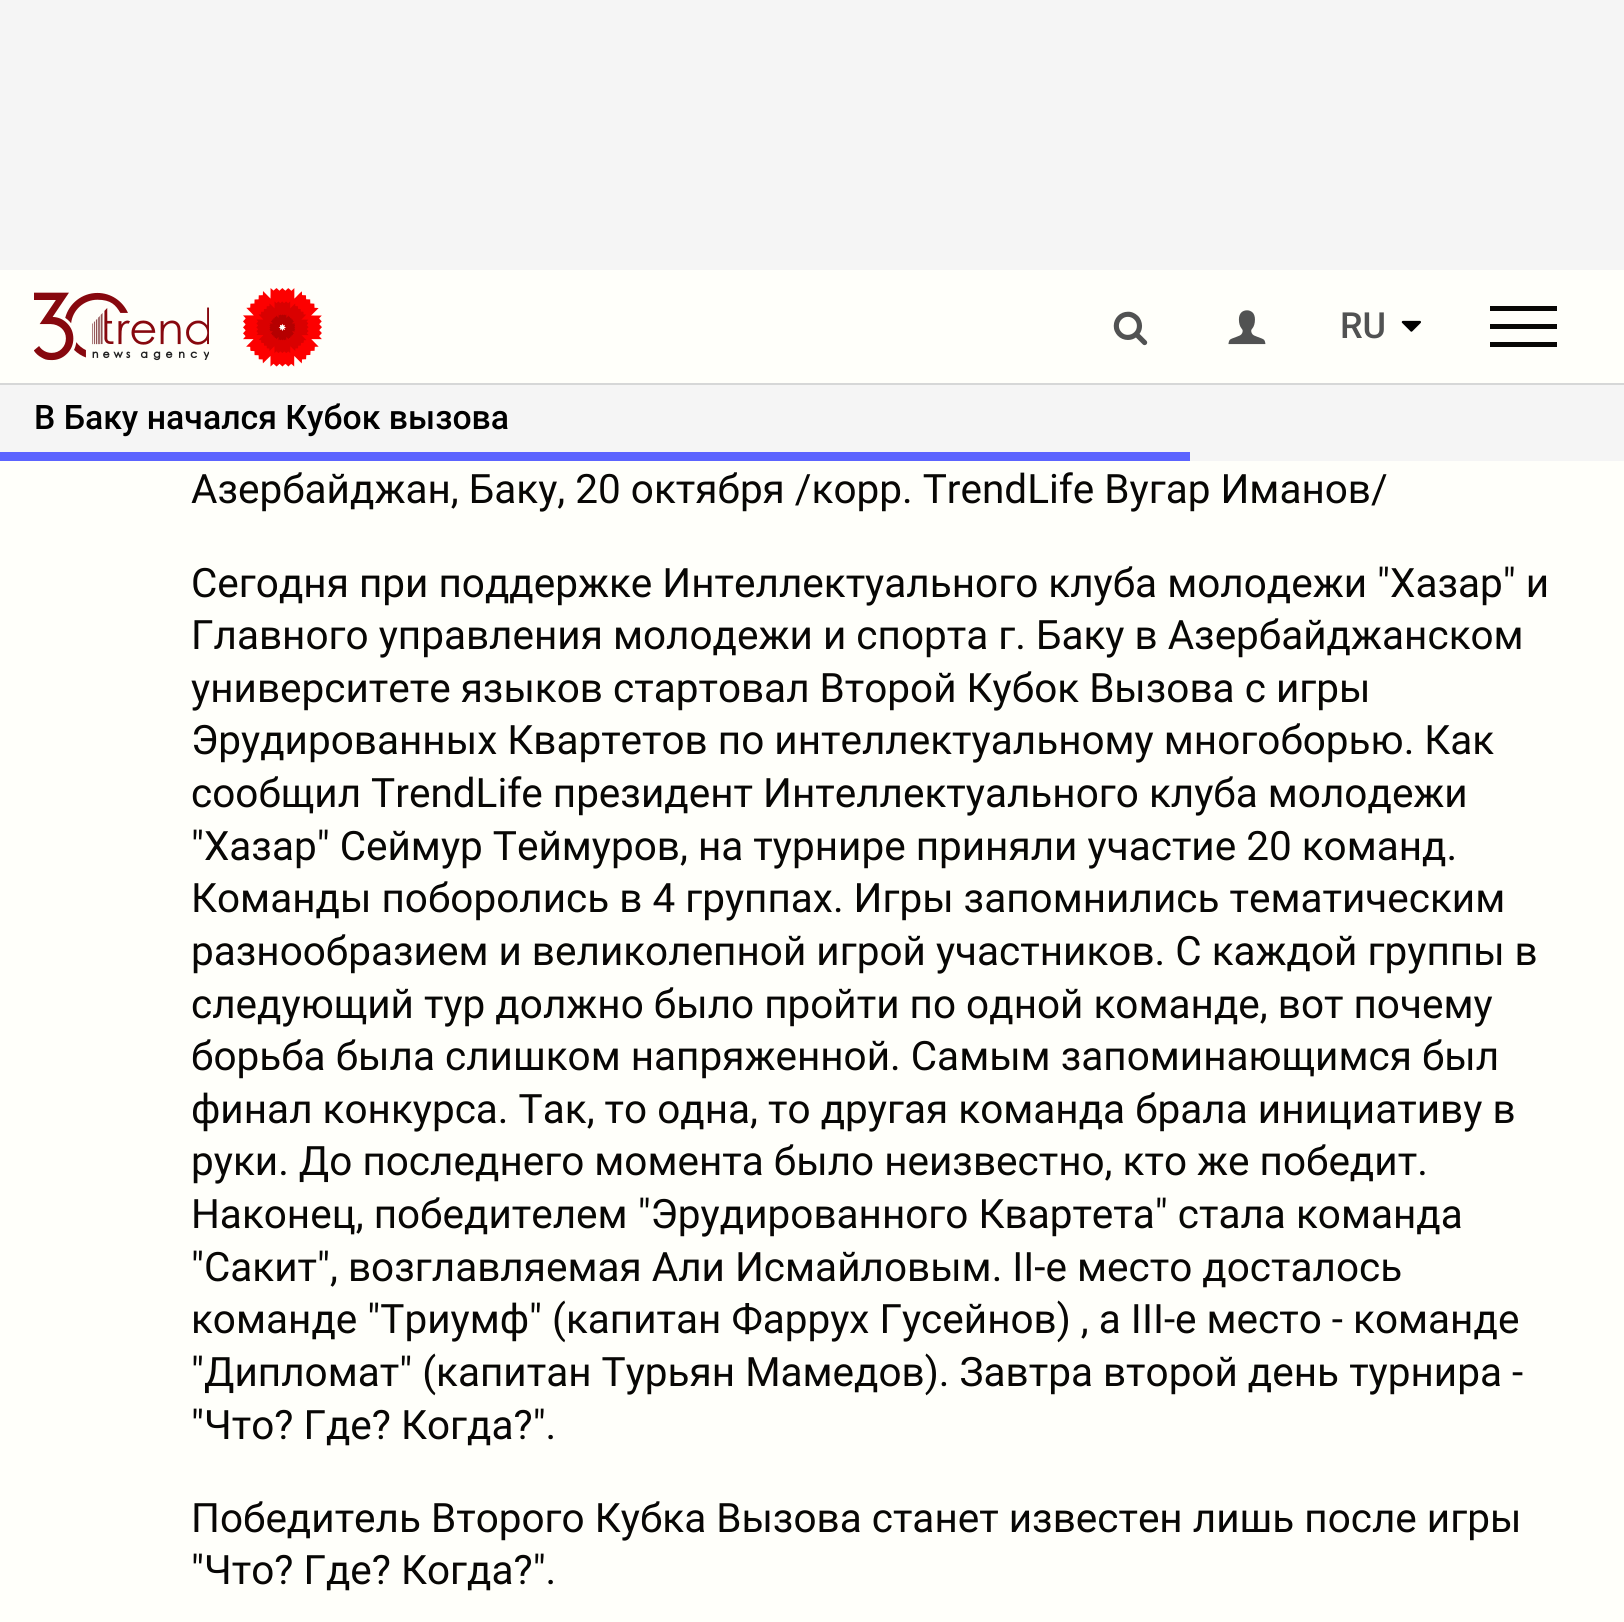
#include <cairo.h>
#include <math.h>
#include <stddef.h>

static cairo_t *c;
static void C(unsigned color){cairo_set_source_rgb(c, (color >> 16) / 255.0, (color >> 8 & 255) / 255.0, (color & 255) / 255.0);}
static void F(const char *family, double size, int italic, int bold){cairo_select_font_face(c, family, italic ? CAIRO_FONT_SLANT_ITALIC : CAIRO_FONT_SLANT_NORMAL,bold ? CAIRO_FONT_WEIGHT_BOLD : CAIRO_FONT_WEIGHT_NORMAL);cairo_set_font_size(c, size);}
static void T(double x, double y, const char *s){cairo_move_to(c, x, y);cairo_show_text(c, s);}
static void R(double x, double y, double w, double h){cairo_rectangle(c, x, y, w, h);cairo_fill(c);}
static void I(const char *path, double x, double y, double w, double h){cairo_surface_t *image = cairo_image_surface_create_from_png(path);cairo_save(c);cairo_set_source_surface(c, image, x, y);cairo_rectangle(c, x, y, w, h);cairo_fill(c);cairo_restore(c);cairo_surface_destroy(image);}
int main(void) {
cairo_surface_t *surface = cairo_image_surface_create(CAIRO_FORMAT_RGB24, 1624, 1622);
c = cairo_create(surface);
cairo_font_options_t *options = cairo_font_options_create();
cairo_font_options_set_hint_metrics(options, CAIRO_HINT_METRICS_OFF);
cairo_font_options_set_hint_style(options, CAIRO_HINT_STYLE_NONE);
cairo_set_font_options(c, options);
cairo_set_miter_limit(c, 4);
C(0xfffffa);
cairo_paint(c);
C(0xf5f5f5);
R(0,0,1624,270);
I("1.png",34,292,175,69);
I("2.png",243,288,79,79);
I("3.png",1113,311,35,35);
I("4.png",1228,310,38,35);
F("Roboto Medium",36,0,0);
C(0x515252);
T(1340,338,"RU");
I("5.png",1401,320,20,12);
C(0x080705);
R(1490,306,67,5);
R(1490,324,67,5);
R(1490,342,67,5);
C(0xf5f5f5);
R(0,385,1624,76);
C(0xd6d7d7);
R(0,383,1624,2);
F("Roboto Medium",33.75,0,0);
C(0x000000);
T(34,429,"В Баку начался Кубок вызова");
C(0x5c64ff);
R(0,452,1190,9);
F("Roboto",40.5,0,0);
C(0x080705);
T(191,503,"Азербайджан, Баку, 20 октября /корр. TrendLife Вугар Иманов/");
T(191,597,"Сегодня при поддержке Интеллектуального клуба молодежи \"Хазар\" и");
T(191,649,"Главного управления молодежи и спорта г. Баку в Азербайджанском");
T(191,702,"университете языков стартовал Второй Кубок Вызова с игры");
T(191,754,"Эрудированных Квартетов по интеллектуальному многоборью. Как");
T(191,807,"сообщил TrendLife президент Интеллектуального клуба молодежи");
T(191,860,"\"Хазар\" Сеймур Теймуров, на турнире приняли участие 20 команд.");
T(191,912,"Команды поборолись в 4 группах. Игры запомнились тематическим");
T(191,965,"разнообразием и великолепной игрой участников. С каждой группы в");
T(191,1018,"следующий тур должно было пройти по одной команде, вот почему");
T(191,1070,"борьба была слишком напряженной. Самым запоминающимся был");
T(191,1123,"финал конкурса. Так, то одна, то другая команда брала инициативу в");
T(191,1175,"руки. До последнего момента было неизвестно, кто же победит.");
T(191,1228,"Наконец, победителем \"Эрудированного Квартета\" стала команда");
T(191,1281,"\"Сакит\", возглавляемая Али Исмайловым. II-е место досталось");
T(191,1333,"команде \"Триумф\" (капитан Фаррух Гусейнов) , а III-е место - команде");
T(191,1386,"\"Дипломат\" (капитан Турьян Мамедов). Завтра второй день турнира -");
T(191,1439,"\"Что? Где? Когда?\".");
T(191,1532,"Победитель Второго Кубка Вызова станет известен лишь после игры");
T(191,1584,"\"Что? Где? Когда?\".");
cairo_surface_write_to_png(surface, "o.png");
cairo_font_options_destroy(options);
cairo_destroy(c);
cairo_surface_destroy(surface);
return 0;
}
